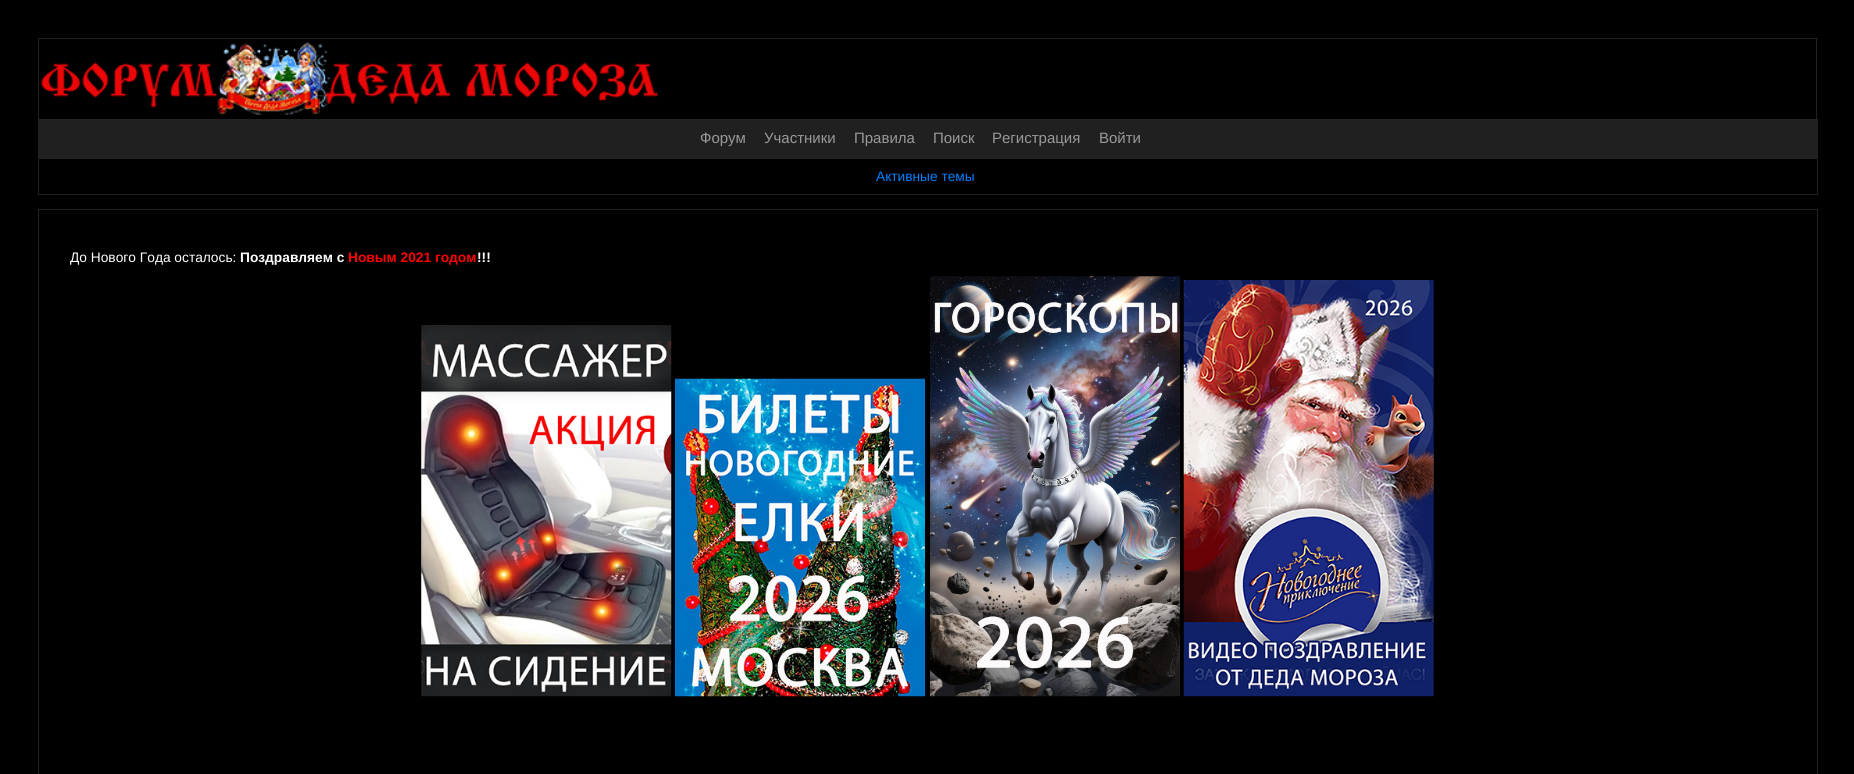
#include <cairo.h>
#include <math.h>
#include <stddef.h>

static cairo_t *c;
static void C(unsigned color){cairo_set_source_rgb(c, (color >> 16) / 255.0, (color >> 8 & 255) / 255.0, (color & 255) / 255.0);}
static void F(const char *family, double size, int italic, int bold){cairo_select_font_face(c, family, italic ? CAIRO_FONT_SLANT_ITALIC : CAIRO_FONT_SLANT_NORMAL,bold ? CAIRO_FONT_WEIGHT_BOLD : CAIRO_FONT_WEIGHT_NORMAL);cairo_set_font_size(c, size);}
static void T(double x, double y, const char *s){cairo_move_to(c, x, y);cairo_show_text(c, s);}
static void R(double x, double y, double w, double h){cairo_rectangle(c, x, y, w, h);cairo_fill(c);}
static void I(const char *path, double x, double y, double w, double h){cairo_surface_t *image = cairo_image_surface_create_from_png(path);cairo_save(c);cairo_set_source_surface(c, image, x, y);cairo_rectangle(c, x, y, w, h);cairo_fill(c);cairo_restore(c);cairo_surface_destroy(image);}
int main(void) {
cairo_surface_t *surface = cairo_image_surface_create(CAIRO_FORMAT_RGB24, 1854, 774);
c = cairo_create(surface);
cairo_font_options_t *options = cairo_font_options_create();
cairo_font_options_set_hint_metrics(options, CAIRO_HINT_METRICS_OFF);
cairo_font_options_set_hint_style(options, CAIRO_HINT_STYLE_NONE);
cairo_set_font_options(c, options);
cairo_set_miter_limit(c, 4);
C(0x000000);
cairo_paint(c);
C(0x222222);
R(38,38,1780,1);
R(1816,38,1,81);
R(38,38,1,81);
I("1.png",41,42,617,73);
C(0x212021);
cairo_rectangle(c,38.5,119.5,1779,38);
cairo_fill_preserve(c);
C(0x222222);
cairo_set_line_width(c,1);
cairo_stroke(c);
F("Liberation Sans",15,0,0);
C(0x999999);
T(700,143,"Форум");
T(764,143,"Участники");
T(854,143,"Правила");
T(933,143,"Поиск");
T(992,143,"Регистрация");
T(1099,143,"Войти");
cairo_rectangle(c,38.5,158.5,1779,36);
C(0x222222);
cairo_stroke(c);
F("Liberation Sans",13.75,0,0);
C(0x0080ff);
T(876,181,"Активные темы");
cairo_rectangle(c,38.5,209.5,1779,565);
C(0x222222);
cairo_stroke(c);
C(0xffffff);
T(70,262,"До Нового Года осталось:");
F("Liberation Sans",13.75,0,1);
T(240,262,"Поздравляем с");
C(0xff0000);
T(348,262,"Новым 2021 годом");
C(0xffffff);
T(477,262,"!!!");
I("2.png",421,325,251,372);
I("3.png",675,378,250,319);
I("4.png",930,276,250,421);
I("5.png",1183,280,251,417);
cairo_surface_write_to_png(surface, "o.png");
cairo_font_options_destroy(options);
cairo_destroy(c);
cairo_surface_destroy(surface);
return 0;
}
